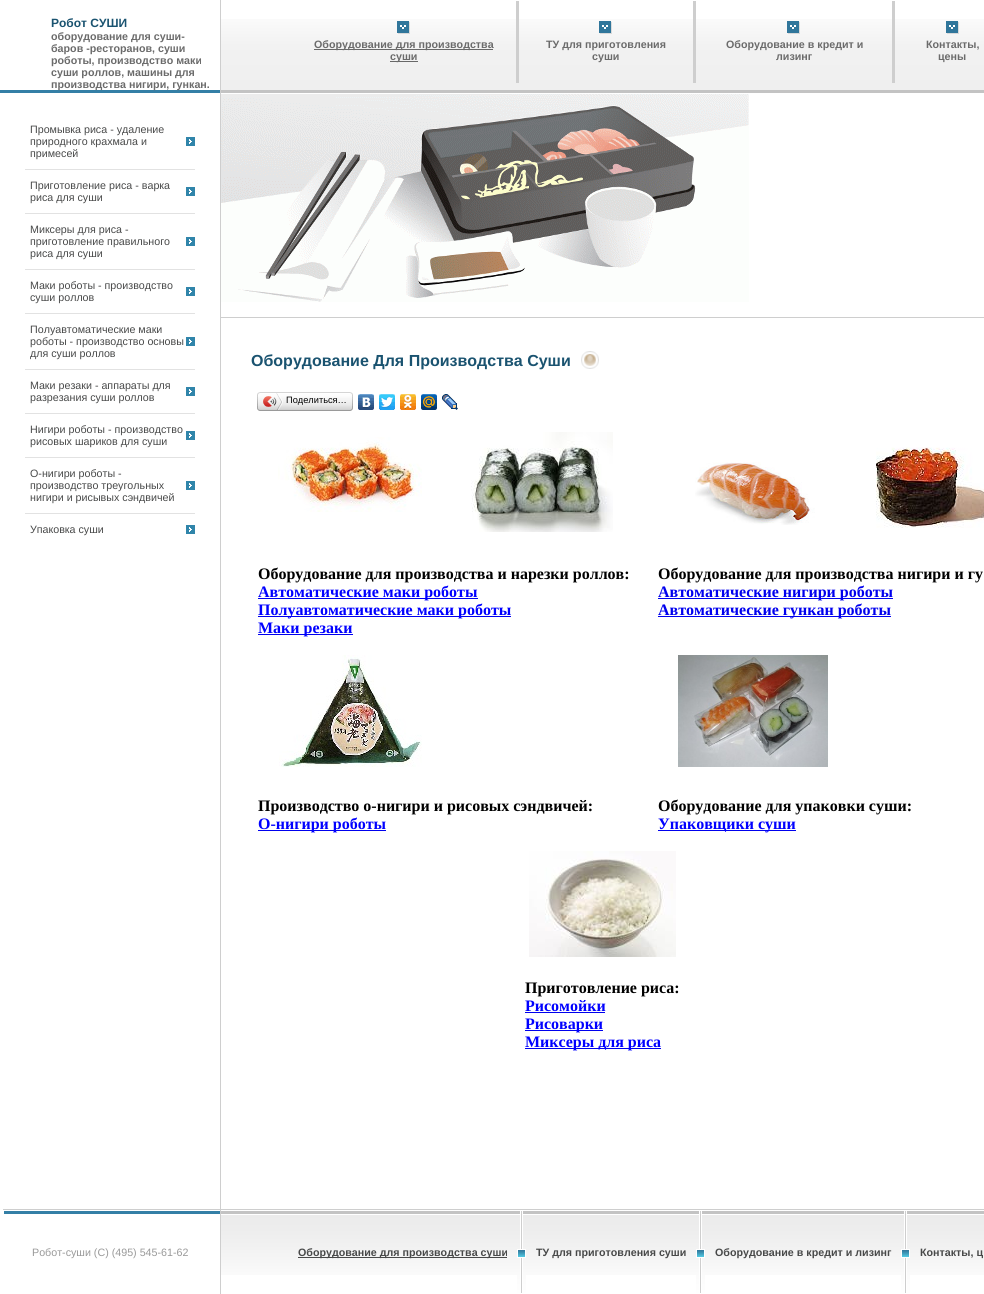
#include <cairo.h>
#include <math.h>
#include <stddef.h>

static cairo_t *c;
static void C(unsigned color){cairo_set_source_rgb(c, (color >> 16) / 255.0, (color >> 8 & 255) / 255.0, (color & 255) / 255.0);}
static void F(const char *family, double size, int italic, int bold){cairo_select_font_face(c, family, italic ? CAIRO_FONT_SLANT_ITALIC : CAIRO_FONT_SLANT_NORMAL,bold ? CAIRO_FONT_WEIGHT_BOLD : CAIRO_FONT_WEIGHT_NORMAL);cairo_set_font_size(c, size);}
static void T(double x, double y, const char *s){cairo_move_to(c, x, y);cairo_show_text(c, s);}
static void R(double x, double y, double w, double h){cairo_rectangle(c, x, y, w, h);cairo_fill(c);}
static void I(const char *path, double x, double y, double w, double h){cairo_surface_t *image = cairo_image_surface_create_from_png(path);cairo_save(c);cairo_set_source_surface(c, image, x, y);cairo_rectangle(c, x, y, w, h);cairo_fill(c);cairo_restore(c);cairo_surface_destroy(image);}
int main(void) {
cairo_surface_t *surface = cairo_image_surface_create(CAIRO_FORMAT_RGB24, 984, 1294);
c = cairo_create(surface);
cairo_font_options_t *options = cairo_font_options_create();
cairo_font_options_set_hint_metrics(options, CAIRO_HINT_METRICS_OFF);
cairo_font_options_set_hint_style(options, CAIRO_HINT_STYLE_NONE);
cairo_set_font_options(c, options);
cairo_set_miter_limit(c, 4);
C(0xffffff);
cairo_paint(c);
F("Liberation Sans",12,0,1);
C(0x1a5370);
T(51,27,"Робот СУШИ");
F("Liberation Sans",10.7,0,1);
C(0x6b6b6b);
T(51,40,"оборудование для суши-");
T(51,52,"баров -ресторанов, суши");
T(51,64,"роботы, производство маки");
T(51,76,"суши роллов, машины для");
C(0x347fa6);
R(0,90,220,3);
C(0x6b6b6b);
T(51,88,"производства нигири, гункан.");
C(0xcecece);
R(220,0,1,1294);
I("1.png",221,19,763,71);
I("2.png",397,21,13,13);
C(0x686868);
R(314,49,179,1);
C(0x6b6b6b);
T(314,48,"Оборудование для производства");
C(0x686868);
R(390,61,28,1);
C(0x6b6b6b);
T(390,60,"суши");
C(0xcecece);
R(516,1,3,82);
I("2.png",599,21,13,13);
C(0x6b6b6b);
T(546,48,"ТУ для приготовления");
T(592,60,"суши");
C(0xcecece);
R(693,1,3,82);
I("2.png",787,21,13,13);
C(0x6b6b6b);
T(726,48,"Оборудование в кредит и");
T(776,60,"лизинг");
C(0xcecece);
R(892,1,3,82);
I("2.png",946,21,13,13);
C(0x6b6b6b);
T(926,48,"Контакты,");
T(938,60,"цены");
C(0xc3c3c3);
R(221,90,763,3);
F("Liberation Sans",10.7,0,0);
C(0x484949);
T(30,133,"Промывка риса - удаление");
T(30,145,"природного крахмала и");
T(30,157,"примесей");
I("3.png",186,137,9,9);
C(0xe2e2e2);
R(25,169,170,1);
C(0x484949);
T(30,189,"Приготовление риса - варка");
T(30,201,"риса для суши");
I("3.png",186,187,9,9);
C(0xe2e2e2);
R(25,213,170,1);
C(0x484949);
T(30,233,"Миксеры для риса -");
T(30,245,"приготовление правильного");
T(30,257,"риса для суши");
I("3.png",186,237,9,9);
C(0xe2e2e2);
R(25,269,170,1);
C(0x484949);
T(30,289,"Маки роботы - производство");
T(30,301,"суши роллов");
I("3.png",186,287,9,9);
C(0xe2e2e2);
R(25,313,170,1);
C(0x484949);
T(30,333,"Полуавтоматические маки");
T(30,345,"роботы - производство основы");
T(30,357,"для суши роллов");
I("3.png",186,337,9,9);
C(0xe2e2e2);
R(25,369,170,1);
C(0x484949);
T(30,389,"Маки резаки - аппараты для");
T(30,401,"разрезания суши роллов");
I("3.png",186,387,9,9);
C(0xe2e2e2);
R(25,413,170,1);
C(0x484949);
T(30,433,"Нигири роботы - производство");
T(30,445,"рисовых шариков для суши");
I("3.png",186,431,9,9);
C(0xe2e2e2);
R(25,457,170,1);
C(0x484949);
T(30,477,"О-нигири роботы -");
T(30,489,"производство треугольных");
T(30,501,"нигири и рисывых сэндвичей");
I("3.png",186,481,9,9);
C(0xe2e2e2);
R(25,513,170,1);
C(0x484949);
T(30,533,"Упаковка суши");
I("3.png",186,525,9,9);
I("4.png",221,94,528,208);
C(0xcecece);
R(221,317,763,1);
F("Liberation Sans",16,0,1);
C(0x1a5370);
T(251,366,"Оборудование Для Производства Суши");
I("5.png",581,351,18,18);
I("6.png",260,392,90,19);
I("7.png",257,392,3,19);
I("8.png",263,393,20,17);
F("Liberation Sans",9.25,0,0);
C(0x000000);
T(286,403,"Поделиться…");
I("9.png",350,392,3,19);
I("10.png",358,394,16,16);
I("11.png",379,394,16,16);
I("12.png",400,394,16,16);
I("13.png",421,394,16,16);
I("14.png",442,394,16,16);
I("15.png",278,437,144,75);
I("16.png",471,432,142,100);
I("17.png",695,462,120,63);
I("18.png",876,447,108,81);
F("Liberation Serif",16,0,1);
T(258,579,"Оборудование для производства и нарезки роллов:");
C(0x0000ee);
R(258,598,220,1);
C(0x0000ff);
T(258,597,"Автоматические маки роботы");
C(0x0000ee);
R(258,616,253,1);
C(0x0000ff);
T(258,615,"Полуавтоматические маки роботы");
C(0x0000ee);
R(258,634,95,1);
C(0x0000ff);
T(258,633,"Маки резаки");
C(0x000000);
T(658,579,"Оборудование для производства нигири и гу");
C(0x0000ee);
R(658,598,235,1);
T(658,597,"Автоматические нигири роботы");
R(658,616,233,1);
T(658,615,"Автоматические гункан роботы");
I("19.png",279,655,143,112);
I("20.png",678,655,150,112);
C(0x000000);
T(258,811,"Производство о-нигири и рисовых сэндвичей:");
C(0x0000ee);
R(258,830,128,1);
C(0x0000ff);
T(258,829,"О-нигири роботы");
C(0x000000);
T(658,811,"Оборудование для упаковки суши:");
C(0x0000ee);
R(658,830,138,1);
C(0x0000ff);
T(658,829,"Упаковщики суши");
I("21.png",529,851,147,106);
C(0x000000);
T(525,993,"Приготовление риса:");
C(0x0000ff);
T(525,1011,"Рисомойки");
C(0x0000ee);
R(525,1012,80,1);
R(525,1030,78,1);
C(0x0000ff);
T(525,1029,"Рисоварки");
C(0x0000ee);
R(525,1048,136,1);
C(0x0000ff);
T(525,1047,"Миксеры для риса");
I("22.png",3,1209,217,5);
F("Liberation Sans",10.7,0,0);
C(0x999999);
T(32,1256,"Робот-суши (С) (495) 545-61-62");
I("23.png",221,1209,763,66);
C(0x484949);
R(298,1257,209,1);
F("Liberation Sans",10.7,0,1);
T(298,1256,"Оборудование для производства суши");
I("24.png",517,1211,9,82);
T(536,1256,"ТУ для приготовления суши");
I("24.png",696,1211,9,82);
T(715,1256,"Оборудование в кредит и лизинг");
I("24.png",901,1211,9,82);
T(920,1256,"Контакты, ц");
cairo_surface_write_to_png(surface, "o.png");
cairo_font_options_destroy(options);
cairo_destroy(c);
cairo_surface_destroy(surface);
return 0;
}
